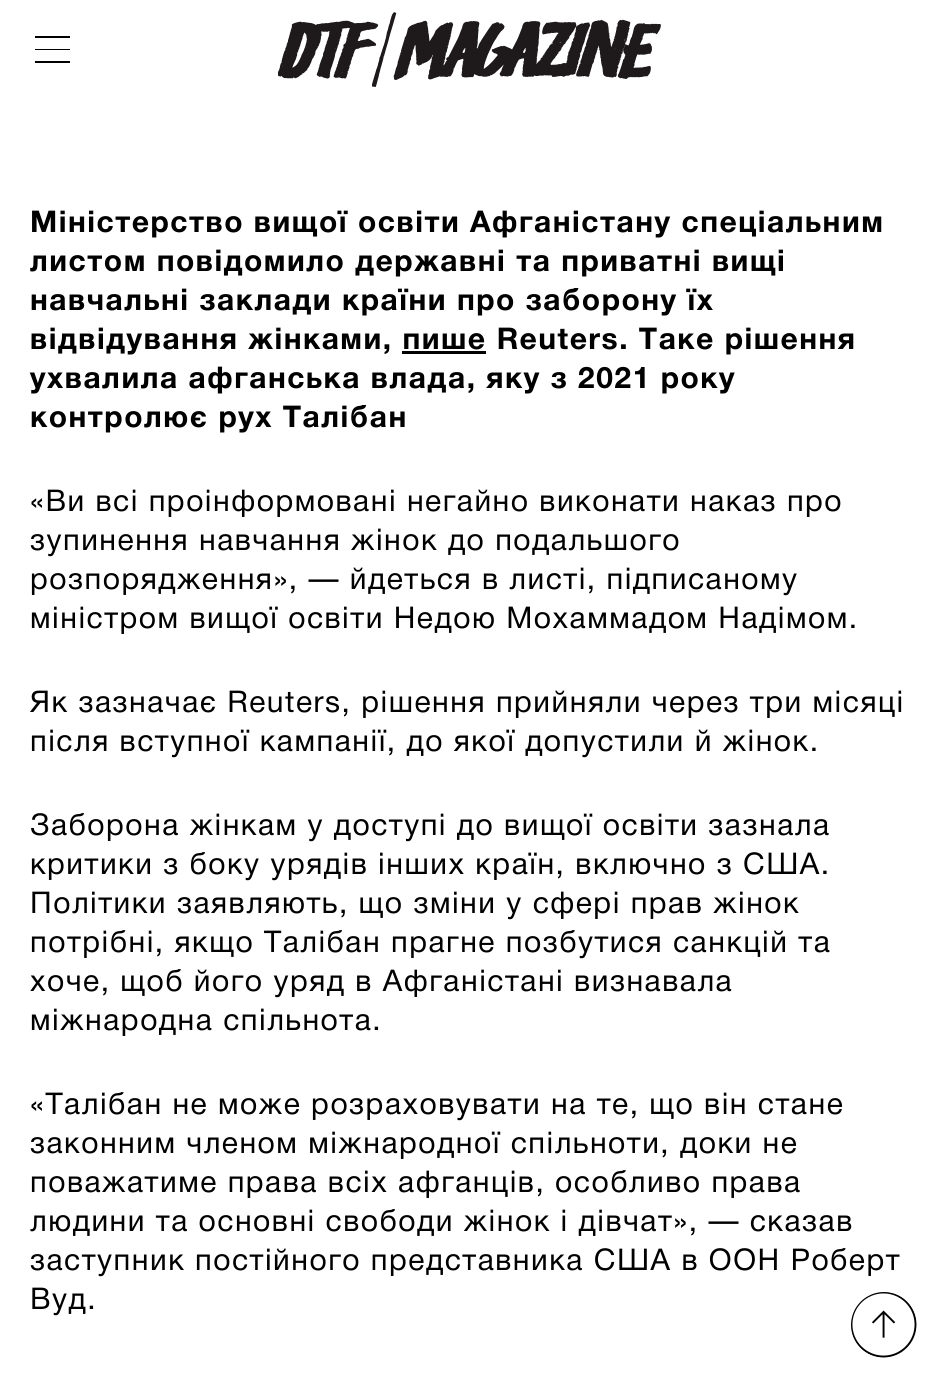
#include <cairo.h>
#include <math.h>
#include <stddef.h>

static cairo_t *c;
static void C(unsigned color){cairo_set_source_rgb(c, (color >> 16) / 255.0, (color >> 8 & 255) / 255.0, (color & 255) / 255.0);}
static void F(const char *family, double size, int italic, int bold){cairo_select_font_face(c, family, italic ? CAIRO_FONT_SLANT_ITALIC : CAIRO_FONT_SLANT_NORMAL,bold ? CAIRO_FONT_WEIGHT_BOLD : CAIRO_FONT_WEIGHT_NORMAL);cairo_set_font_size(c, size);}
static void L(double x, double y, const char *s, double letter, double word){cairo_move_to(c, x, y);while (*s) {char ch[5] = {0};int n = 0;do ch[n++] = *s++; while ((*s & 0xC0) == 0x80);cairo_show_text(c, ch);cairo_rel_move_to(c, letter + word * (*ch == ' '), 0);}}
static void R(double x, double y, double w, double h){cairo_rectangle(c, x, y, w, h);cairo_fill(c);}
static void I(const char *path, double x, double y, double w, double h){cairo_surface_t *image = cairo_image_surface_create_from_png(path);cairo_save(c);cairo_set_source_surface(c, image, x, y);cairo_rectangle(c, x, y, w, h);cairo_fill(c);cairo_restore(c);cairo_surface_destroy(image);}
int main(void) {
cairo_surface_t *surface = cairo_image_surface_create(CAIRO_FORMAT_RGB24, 938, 1380);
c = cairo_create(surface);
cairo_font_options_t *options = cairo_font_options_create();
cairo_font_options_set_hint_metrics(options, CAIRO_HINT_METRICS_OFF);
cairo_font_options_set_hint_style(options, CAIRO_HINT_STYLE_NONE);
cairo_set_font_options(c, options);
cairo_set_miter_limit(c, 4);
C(0xffffff);
cairo_paint(c);
C(0x000000);
R(35,49,35,1);
R(35,36,35,2);
R(35,61,35,2);
I("1.png",278,12,383,75);
F("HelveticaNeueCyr",30,0,1);
L(30,232,"Міністерство вищої освіти Афганістану спеціальним",1.5,0);
L(30,271,"листом повідомило державні та приватні вищі",1.5,0);
L(30,310,"навчальні заклади країни про заборону їх",1.5,0);
L(30,349,"відвідування жінками, пише Reuters. Таке рішення",1.5,0);
R(402,351,84,3);
L(30,388,"ухвалила афганська влада, яку з 2021 року",1.5,0);
L(30,427,"контролює рух Талібан",1.5,0);
F("HelveticaNeueCyr",30,0,0);
L(30,511,"«Ви всі проінформовані негайно виконати наказ про",1.5,0);
L(30,550,"зупинення навчання жінок до подальшого",1.5,0);
L(30,589,"розпорядження», — йдеться в листі, підписаному",1.5,0);
L(30,628,"міністром вищої освіти Недою Мохаммадом Надімом.",1.5,0);
L(30,712,"Як зазначає Reuters, рішення прийняли через три місяці",1.5,0);
L(30,751,"після вступної кампанії, до якої допустили й жінок.",1.5,0);
L(30,835,"Заборона жінкам у доступі до вищої освіти зазнала",1.5,0);
L(30,874,"критики з боку урядів інших країн, включно з США.",1.5,0);
L(30,913,"Політики заявляють, що зміни у сфері прав жінок",1.5,0);
L(30,952,"потрібні, якщо Талібан прагне позбутися санкцій та",1.5,0);
L(30,991,"хоче, щоб його уряд в Афганістані визнавала",1.5,0);
L(30,1030,"міжнародна спільнота.",1.5,0);
L(30,1114,"«Талібан не може розраховувати на те, що він стане",1.5,0);
L(30,1153,"законним членом міжнародної спільноти, доки не",1.5,0);
L(30,1192,"поважатиме права всіх афганців, особливо права",1.5,0);
L(30,1231,"людини та основні свободи жінок і дівчат», — сказав",1.5,0);
L(30,1270,"заступник постійного представника США в ООН Роберт",1.5,0);
L(30,1309,"Вуд.",1.5,0);
I("2.png",851,1292,66,66);
cairo_surface_write_to_png(surface, "o.png");
cairo_font_options_destroy(options);
cairo_destroy(c);
cairo_surface_destroy(surface);
return 0;
}
